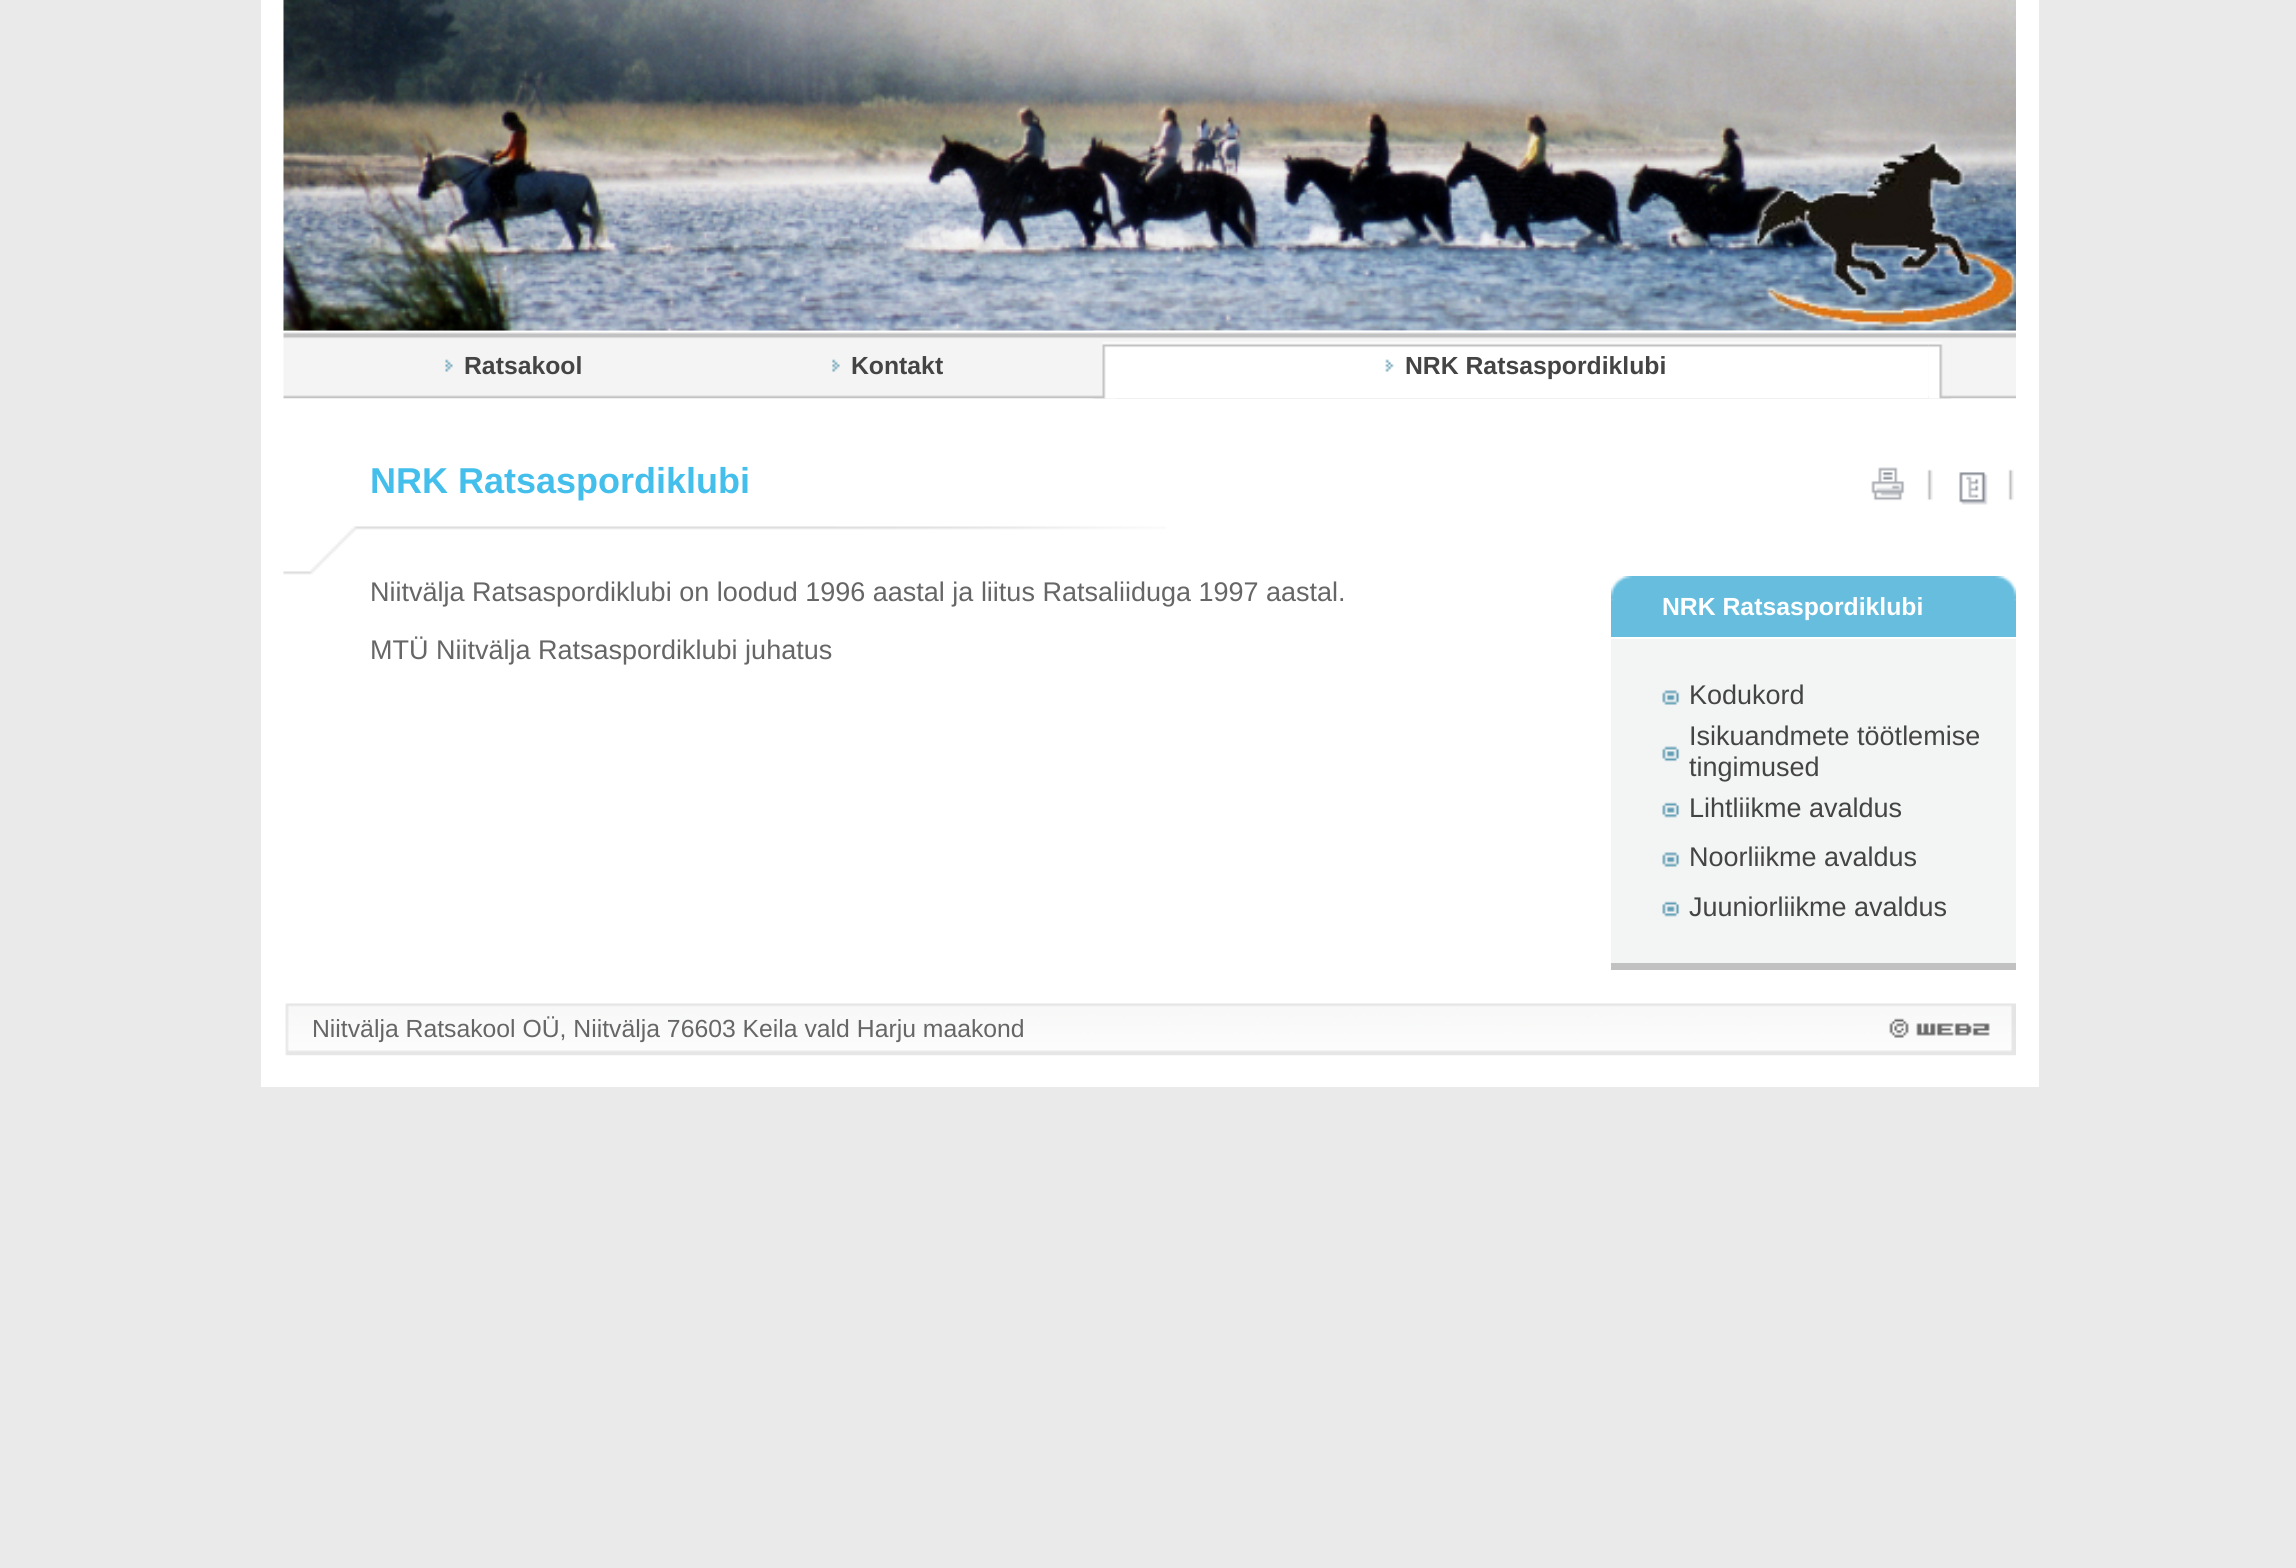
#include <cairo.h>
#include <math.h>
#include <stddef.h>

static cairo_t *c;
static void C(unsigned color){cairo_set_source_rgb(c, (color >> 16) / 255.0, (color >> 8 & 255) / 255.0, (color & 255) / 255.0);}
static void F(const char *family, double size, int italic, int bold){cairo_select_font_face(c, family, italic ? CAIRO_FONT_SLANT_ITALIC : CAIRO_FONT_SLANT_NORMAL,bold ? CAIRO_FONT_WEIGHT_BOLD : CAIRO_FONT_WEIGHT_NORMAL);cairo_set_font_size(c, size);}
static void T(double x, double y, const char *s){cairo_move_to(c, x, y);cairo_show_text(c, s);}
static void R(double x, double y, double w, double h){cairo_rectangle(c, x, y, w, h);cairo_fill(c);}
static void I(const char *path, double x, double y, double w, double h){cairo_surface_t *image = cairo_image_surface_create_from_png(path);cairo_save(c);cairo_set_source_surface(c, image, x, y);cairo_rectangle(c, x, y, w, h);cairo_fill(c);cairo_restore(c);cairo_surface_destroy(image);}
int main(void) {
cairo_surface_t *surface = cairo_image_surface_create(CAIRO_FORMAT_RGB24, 2296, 1568);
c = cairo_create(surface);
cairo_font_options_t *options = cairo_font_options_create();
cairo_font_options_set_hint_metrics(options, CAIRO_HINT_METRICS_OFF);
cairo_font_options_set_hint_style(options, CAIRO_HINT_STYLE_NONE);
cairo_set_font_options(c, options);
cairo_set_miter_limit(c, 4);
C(0xeaeaeb);
cairo_paint(c);
C(0xffffff);
R(261,0,1778,1087);
I("1.png",283,0,1733,331);
I("2.png",283,330,1733,69);
I("3.png",445,359,8,13);
F("Liberation Sans",24.75,0,1);
C(0x444444);
T(464,374,"Ratsakool");
I("4.png",832,359,8,13);
T(851,374,"Kontakt");
I("5.png",1093,330,23,69);
I("6.png",1116,330,813,68);
I("7.png",1385,359,9,13);
T(1405,374,"NRK Ratsaspordiklubi");
I("8.png",1928,330,23,69);
F("Liberation Sans",36,0,1);
C(0x44bfec);
T(370,493,"NRK Ratsaspordiklubi");
I("9.png",1871,467,62,34);
I("10.png",1959,469,55,36);
I("11.png",283,526,883,49);
F("Liberation Sans",27,0,0);
C(0x666666);
T(370,601,"Niitvälja Ratsaspordiklubi on loodud 1996 aastal ja liitus Ratsaliiduga 1997 aastal.");
T(370,659,"MTÜ Niitvälja Ratsaspordiklubi juhatus");
C(0x66bdde);
R(1611,576,405,61);
I("12.png",1611,576,21,25);
I("13.png",1995,576,21,25);
F("Liberation Sans",24.75,0,1);
C(0xffffff);
T(1662,615,"NRK Ratsaspordiklubi");
C(0xf3f4f4);
R(1611,639,405,324);
I("14.png",1662,690,18,15);
F("Liberation Sans",27,0,0);
C(0x444444);
T(1689,704,"Kodukord");
I("15.png",1662,746,18,16);
T(1689,745,"Isikuandmete töötlemise");
T(1689,776,"tingimused");
I("16.png",1662,802,18,16);
T(1689,817,"Lihtliikme avaldus");
I("14.png",1662,852,18,15);
T(1689,866,"Noorliikme avaldus");
I("16.png",1662,901,18,16);
T(1689,916,"Juuniorliikme avaldus");
C(0xc1c1c1);
R(1611,963,405,7);
I("17.png",285,1003,1731,53);
F("Liberation Sans",24.75,0,0);
C(0x666666);
T(312,1037,"Niitvälja Ratsakool OÜ, Niitvälja 76603 Keila vald Harju maakond");
cairo_surface_write_to_png(surface, "o.png");
cairo_font_options_destroy(options);
cairo_destroy(c);
cairo_surface_destroy(surface);
return 0;
}
